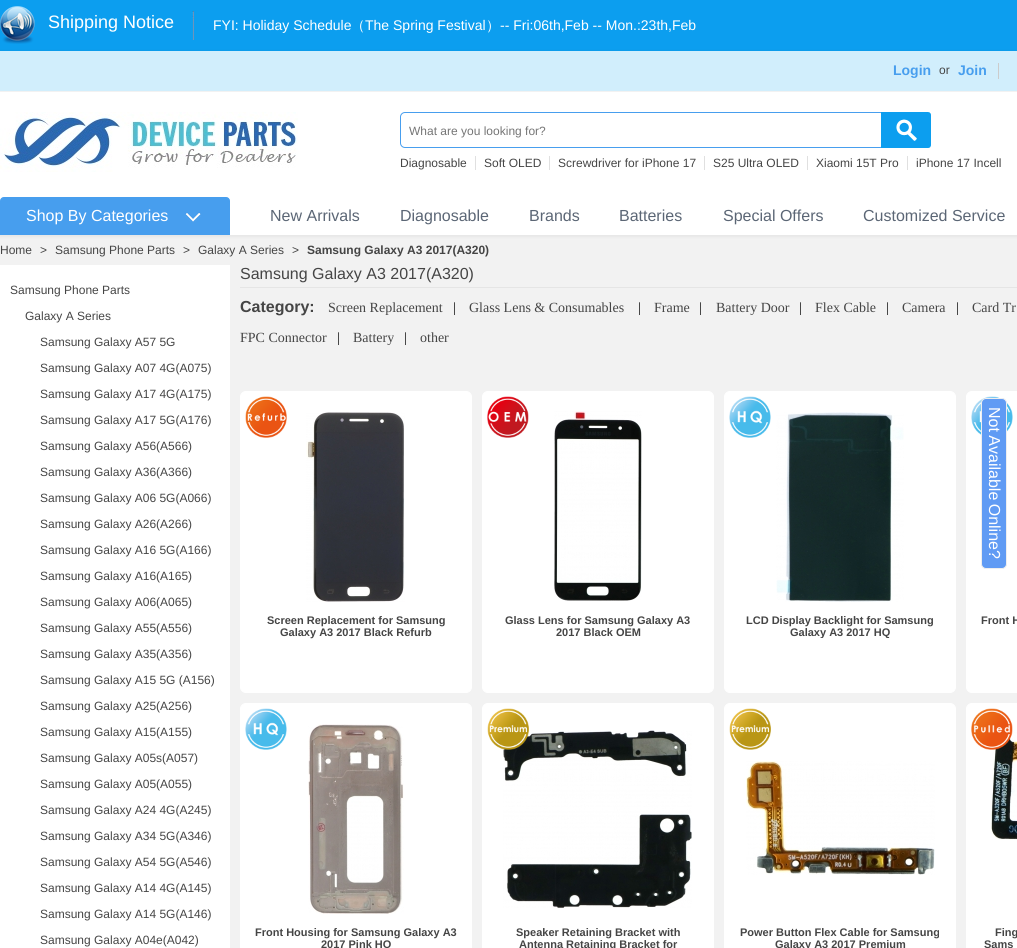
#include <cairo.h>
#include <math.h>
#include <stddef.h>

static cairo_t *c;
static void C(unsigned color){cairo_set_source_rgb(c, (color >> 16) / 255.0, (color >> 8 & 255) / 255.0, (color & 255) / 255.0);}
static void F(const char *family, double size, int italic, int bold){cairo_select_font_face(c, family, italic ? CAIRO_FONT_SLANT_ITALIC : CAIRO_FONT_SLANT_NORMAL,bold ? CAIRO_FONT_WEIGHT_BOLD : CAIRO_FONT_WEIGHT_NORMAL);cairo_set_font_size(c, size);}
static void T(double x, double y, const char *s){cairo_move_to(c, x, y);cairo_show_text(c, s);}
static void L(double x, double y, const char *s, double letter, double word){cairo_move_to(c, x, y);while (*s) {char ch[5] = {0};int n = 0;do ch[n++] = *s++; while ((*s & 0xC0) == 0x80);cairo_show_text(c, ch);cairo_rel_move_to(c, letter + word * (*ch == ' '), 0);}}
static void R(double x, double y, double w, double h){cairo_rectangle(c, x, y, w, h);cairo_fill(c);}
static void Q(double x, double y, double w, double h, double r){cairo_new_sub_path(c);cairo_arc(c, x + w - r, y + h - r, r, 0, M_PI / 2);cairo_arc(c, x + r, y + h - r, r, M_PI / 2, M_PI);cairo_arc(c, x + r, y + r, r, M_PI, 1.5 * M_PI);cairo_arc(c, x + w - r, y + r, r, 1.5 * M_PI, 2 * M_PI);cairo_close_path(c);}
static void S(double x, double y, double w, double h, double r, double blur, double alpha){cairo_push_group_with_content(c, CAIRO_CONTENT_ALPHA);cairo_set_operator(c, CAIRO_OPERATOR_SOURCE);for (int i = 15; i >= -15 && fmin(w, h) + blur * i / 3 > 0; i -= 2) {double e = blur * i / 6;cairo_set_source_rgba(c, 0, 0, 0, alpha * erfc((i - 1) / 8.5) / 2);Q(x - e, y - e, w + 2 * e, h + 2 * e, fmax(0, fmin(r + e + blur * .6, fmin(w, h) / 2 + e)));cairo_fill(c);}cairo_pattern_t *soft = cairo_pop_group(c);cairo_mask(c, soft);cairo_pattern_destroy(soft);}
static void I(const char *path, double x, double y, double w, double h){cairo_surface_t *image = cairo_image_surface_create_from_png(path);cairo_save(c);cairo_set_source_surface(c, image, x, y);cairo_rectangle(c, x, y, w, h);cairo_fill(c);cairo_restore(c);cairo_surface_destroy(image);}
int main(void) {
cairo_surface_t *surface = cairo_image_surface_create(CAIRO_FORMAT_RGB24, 1017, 948);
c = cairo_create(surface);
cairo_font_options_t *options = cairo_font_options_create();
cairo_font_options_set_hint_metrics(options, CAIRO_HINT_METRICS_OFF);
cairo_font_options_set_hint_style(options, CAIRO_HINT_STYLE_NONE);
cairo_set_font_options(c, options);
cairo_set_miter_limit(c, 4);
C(0xf2f2f2);
cairo_paint(c);
C(0x0c9eef);
R(0,0,1017,51);
I("1.png",0,6,35,38);
I("2.png",192,11,2,29);
F("Liberation Sans",18,0,0);
C(0xffffff);
T(48,28,"Shipping Notice");
F("Liberation Sans",14,0,0);
T(213,30,"FYI: Holiday Schedule");
F("WenQuanYi Zen Hei Medium",14,0,0);
T(351,30,"（");
F("Liberation Sans",14,0,0);
T(365,30,"The Spring Festival");
F("WenQuanYi Zen Hei Medium",14,0,0);
T(486,30,"）");
F("Liberation Sans",14,0,0);
T(500,30,"-- Fri:06th,Feb -- Mon.:23th,Feb");
C(0x000000);
S(0,52,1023,184,0,2,.08);
C(0xffffff);
R(0,92,1017,143);
C(0xd1eefc);
R(0,51,1017,40);
C(0xf2f2f2);
R(0,91,1017,1);
F("Liberation Sans",14,0,1);
C(0x479eee);
T(893,75,"Login");
F("Liberation Sans",12,0,0);
C(0x454545);
T(939,74,"or");
F("Liberation Sans",14,0,1);
C(0x479eee);
T(958,75,"Join");
C(0xcccccc);
R(998,63,1,16);
I("3.png",0,112,298,60);
Q(400.5,112.5,484,35,4.5);
C(0x489eee);
cairo_set_line_width(c,1);
cairo_stroke(c);
F("Liberation Sans",12,0,0);
C(0x757575);
T(409,135,"What are you looking for?");
I("4.png",881,112,50,36);
C(0x454545);
T(400,167,"Diagnosable");
C(0xe0e0e0);
R(475,156,1,14);
C(0x454545);
T(484,167,"Soft OLED");
C(0xe0e0e0);
R(549,156,1,14);
C(0x454545);
T(558,167,"Screwdriver for iPhone 17");
C(0xe0e0e0);
R(704,156,1,14);
C(0x454545);
T(713,167,"S25 Ultra OLED");
C(0xe0e0e0);
R(807,156,1,14);
C(0x454545);
T(816,167,"Xiaomi 15T Pro");
C(0xe0e0e0);
R(907,156,1,14);
C(0x454545);
T(916,167,"iPhone 17 Incell");
C(0x479eee);
cairo_new_path(c);
cairo_move_to(c,4,197.5);
cairo_line_to(c,226,197.5);
cairo_curve_to(c,228,197.5,229.5,199,229.5,201);
cairo_line_to(c,229.5,234.5);
cairo_line_to(c,.5,234.5);
cairo_line_to(c,.5,201);
cairo_curve_to(c,.5,199,2,197.5,4,197.5);
cairo_close_path(c);
cairo_fill_preserve(c);
cairo_stroke(c);
F("Liberation Sans",16,0,0);
C(0xffffff);
T(26,221,"Shop By Categories");
I("5.png",185,212,16,10);
C(0x5b6675);
T(270,221,"New Arrivals");
T(400,221,"Diagnosable");
T(529,221,"Brands");
T(619,221,"Batteries");
T(723,221,"Special Offers");
T(863,221,"Customized Service");
F("Liberation Sans",12,0,0);
C(0x454545);
T(0,254,"Home");
T(40,254,">");
T(55,254,"Samsung Phone Parts");
T(183,254,">");
T(198,254,"Galaxy A Series");
T(292,254,">");
F("Liberation Sans",12,0,1);
T(307,254,"Samsung Galaxy A3 2017(A320)");
C(0xe5e5e5);
R(240,287,777,1);
F("Liberation Sans",16,0,0);
C(0x454545);
T(240,279,"Samsung Galaxy A3 2017(A320)");
C(0xffffff);
R(0,265,230,683);
F("Liberation Sans",12,0,0);
C(0x454545);
T(10,294,"Samsung Phone Parts");
T(25,320,"Galaxy A Series");
T(40,346,"Samsung Galaxy A57 5G");
T(40,372,"Samsung Galaxy A07 4G(A075)");
T(40,398,"Samsung Galaxy A17 4G(A175)");
T(40,424,"Samsung Galaxy A17 5G(A176)");
T(40,450,"Samsung Galaxy A56(A566)");
T(40,476,"Samsung Galaxy A36(A366)");
T(40,502,"Samsung Galaxy A06 5G(A066)");
T(40,528,"Samsung Galaxy A26(A266)");
T(40,554,"Samsung Galaxy A16 5G(A166)");
T(40,580,"Samsung Galaxy A16(A165)");
T(40,606,"Samsung Galaxy A06(A065)");
T(40,632,"Samsung Galaxy A55(A556)");
T(40,658,"Samsung Galaxy A35(A356)");
T(40,684,"Samsung Galaxy A15 5G (A156)");
T(40,710,"Samsung Galaxy A25(A256)");
T(40,736,"Samsung Galaxy A15(A155)");
T(40,762,"Samsung Galaxy A05s(A057)");
T(40,788,"Samsung Galaxy A05(A055)");
T(40,814,"Samsung Galaxy A24 4G(A245)");
T(40,840,"Samsung Galaxy A34 5G(A346)");
T(40,866,"Samsung Galaxy A54 5G(A546)");
T(40,892,"Samsung Galaxy A14 4G(A145)");
T(40,918,"Samsung Galaxy A14 5G(A146)");
T(40,944,"Samsung Galaxy A04e(A042)");
F("Liberation Sans",16,0,1);
T(240,312,"Category:");
F("Liberation Serif",14,0,0);
T(328,312,"Screen Replacement");
C(0x000000);
T(453,312,"|");
C(0x454545);
T(469,312,"Glass Lens & Consumables");
C(0x000000);
T(638,312,"|");
C(0x454545);
T(654,312,"Frame");
C(0x000000);
T(699,312,"|");
C(0x454545);
T(716,312,"Battery Door");
C(0x000000);
T(799,312,"|");
C(0x454545);
T(815,312,"Flex Cable");
C(0x000000);
T(886,312,"|");
C(0x454545);
T(902,312,"Camera");
C(0x000000);
T(956,312,"|");
C(0x454545);
T(972,312,"Card Tr");
T(240,342,"FPC Connector");
C(0x000000);
T(337,342,"|");
C(0x454545);
T(353,342,"Battery");
C(0x000000);
T(404,342,"|");
C(0x454545);
T(420,342,"other");
C(0xffffff);
Q(240.5,391.5,231,301,5.5);
cairo_fill_preserve(c);
cairo_stroke(c);
I("6.png",245,396,42,42);
I("7.png",306,412,99,190);
F("Liberation Sans",11,0,1);
C(0x454545);
T(267,624,"Screen Replacement for Samsung");
T(280,636,"Galaxy A3 2017 Black Refurb");
C(0xffffff);
Q(482.5,391.5,231,301,5.5);
cairo_fill_preserve(c);
cairo_stroke(c);
I("8.png",487,396,42,42);
I("9.png",554,411,88,190);
C(0x454545);
T(505,624,"Glass Lens for Samsung Galaxy A3");
T(556,636,"2017 Black OEM");
C(0xffffff);
Q(724.5,391.5,231,301,5.5);
cairo_fill_preserve(c);
cairo_stroke(c);
I("10.png",729,396,42,42);
I("11.png",776,412,128,190);
C(0x454545);
T(746,624,"LCD Display Backlight for Samsung");
cairo_save(c);
cairo_rectangle(c,735,614,210,24);
cairo_clip(c);
T(790,636,"Galaxy A3 2017 HQ");
cairo_restore(c);
C(0xffffff);
Q(966.5,391.5,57,301,5.5);
cairo_fill_preserve(c);
cairo_stroke(c);
I("12.png",971,396,42,39);
C(0x454545);
T(981,624,"Front H");
C(0xffffff);
Q(240.5,703.5,231,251,5.5);
cairo_fill_preserve(c);
cairo_stroke(c);
I("10.png",245,708,42,42);
I("13.png",308,724,96,190);
C(0x454545);
T(255,936,"Front Housing for Samsung Galaxy A3");
T(321,948,"2017 Pink HQ");
C(0xffffff);
Q(482.5,703.5,231,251,5.5);
cairo_fill_preserve(c);
cairo_stroke(c);
I("15.png",503,730,189,178);
I("14.png",487,708,42,42);
C(0x454545);
T(516,936,"Speaker Retaining Bracket with");
T(519,948,"Antenna Retaining Bracket for");
C(0xffffff);
Q(724.5,703.5,231,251,5.5);
cairo_fill_preserve(c);
cairo_stroke(c);
I("16.png",729,708,42,42);
I("17.png",746,761,189,114);
C(0x454545);
T(740,936,"Power Button Flex Cable for Samsung");
T(775,948,"Galaxy A3 2017 Premium");
C(0xffffff);
Q(966.5,703.5,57,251,5.5);
cairo_fill_preserve(c);
cairo_stroke(c);
I("19.png",990,730,27,110);
I("18.png",971,708,42,42);
C(0x454545);
T(995,936,"Fing");
T(984,948,"Sams");
C(0x609bf4);
Q(981.5,398.5,25,170,4.5);
cairo_fill_preserve(c);
C(0xeeeeee);
cairo_stroke(c);
F("Liberation Sans",16,0,0);
C(0xffffff);
cairo_save(c);
cairo_translate(c,989,407);
cairo_rotate(c,90 * M_PI / 180);
L(0,0,"Not Available Online?",0,-1);
cairo_restore(c);
cairo_surface_write_to_png(surface, "o.png");
cairo_font_options_destroy(options);
cairo_destroy(c);
cairo_surface_destroy(surface);
return 0;
}
